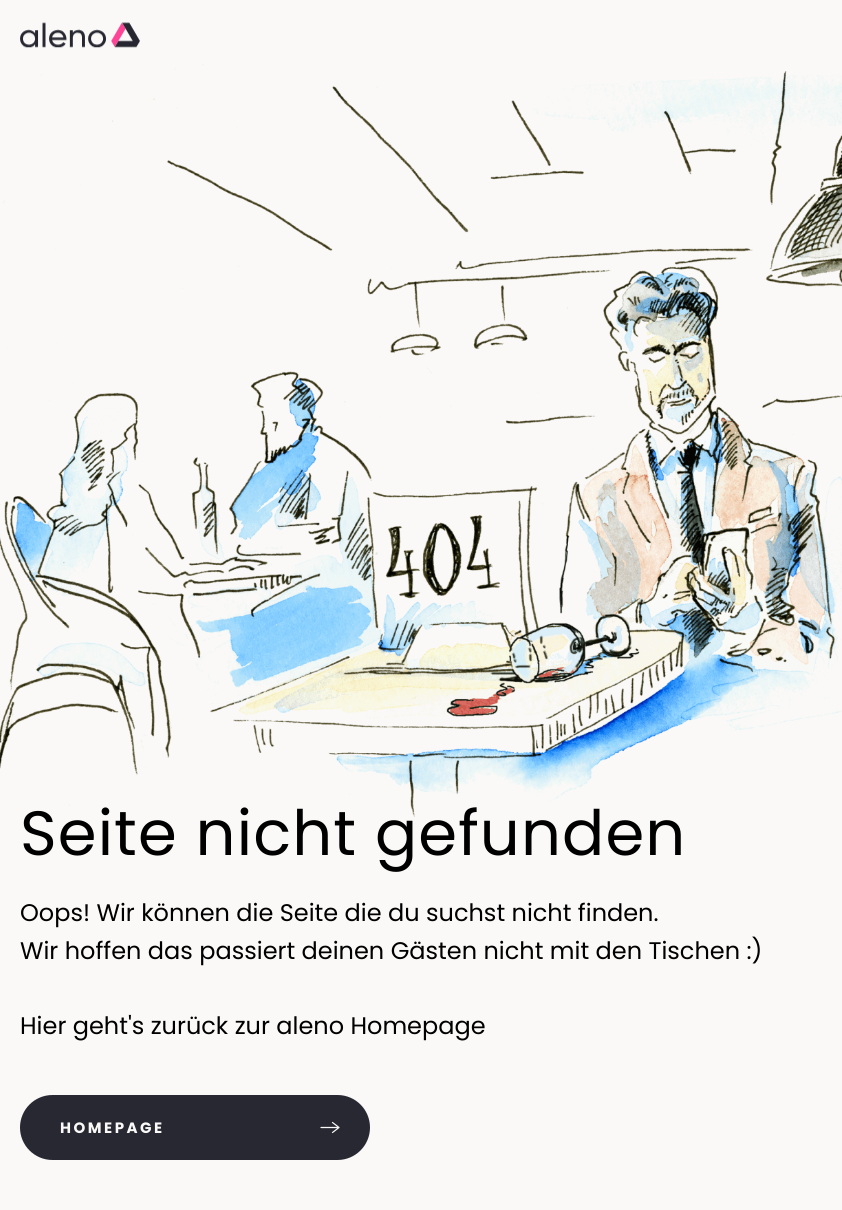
#include <cairo.h>
#include <math.h>
#include <stddef.h>

static cairo_t *c;
static void C(unsigned color){cairo_set_source_rgb(c, (color >> 16) / 255.0, (color >> 8 & 255) / 255.0, (color & 255) / 255.0);}
static void F(const char *family, double size, int italic, int bold){cairo_select_font_face(c, family, italic ? CAIRO_FONT_SLANT_ITALIC : CAIRO_FONT_SLANT_NORMAL,bold ? CAIRO_FONT_WEIGHT_BOLD : CAIRO_FONT_WEIGHT_NORMAL);cairo_set_font_size(c, size);}
static void T(double x, double y, const char *s){cairo_move_to(c, x, y);cairo_show_text(c, s);}
static void L(double x, double y, const char *s, double letter, double word){cairo_move_to(c, x, y);while (*s) {char ch[5] = {0};int n = 0;do ch[n++] = *s++; while ((*s & 0xC0) == 0x80);cairo_show_text(c, ch);cairo_rel_move_to(c, letter + word * (*ch == ' '), 0);}}
static void Q(double x, double y, double w, double h, double r){cairo_new_sub_path(c);cairo_arc(c, x + w - r, y + h - r, r, 0, M_PI / 2);cairo_arc(c, x + r, y + h - r, r, M_PI / 2, M_PI);cairo_arc(c, x + r, y + r, r, M_PI, 1.5 * M_PI);cairo_arc(c, x + w - r, y + r, r, 1.5 * M_PI, 2 * M_PI);cairo_close_path(c);}
static void I(const char *path, double x, double y, double w, double h){cairo_surface_t *image = cairo_image_surface_create_from_png(path);cairo_save(c);cairo_set_source_surface(c, image, x, y);cairo_rectangle(c, x, y, w, h);cairo_fill(c);cairo_restore(c);cairo_surface_destroy(image);}
int main(void) {
cairo_surface_t *surface = cairo_image_surface_create(CAIRO_FORMAT_RGB24, 842, 1210);
c = cairo_create(surface);
cairo_font_options_t *options = cairo_font_options_create();
cairo_font_options_set_hint_metrics(options, CAIRO_HINT_METRICS_OFF);
cairo_font_options_set_hint_style(options, CAIRO_HINT_STYLE_NONE);
cairo_set_font_options(c, options);
cairo_set_miter_limit(c, 4);
C(0xfaf9f7);
cairo_paint(c);
I("1.png",0,64,842,768);
I("2.png",20,22,120,26);
F("Poppins",62.5,0,0);
C(0x000000);
L(20,855,"Seite nicht gefunden",1.1,0);
F("Poppins",24,0,0);
T(20,921,"Oops! Wir können die Seite die du suchst nicht finden.");
T(20,959,"Wir hoffen das passiert deinen Gästen nicht mit den Tischen :)");
T(20,1034,"Hier geht's zurück zur aleno Homepage");
C(0x282833);
Q(20,1095,350,65,32.5);
cairo_fill(c);
F("Poppins",15,0,1);
C(0xfaf9f7);
L(60,1133,"HOMEPAGE",2.5,0);
cairo_new_path(c);
cairo_move_to(c,321,1127.5);
cairo_line_to(c,339,1127.5);
cairo_move_to(c,332.5,1122.5);
cairo_line_to(c,339,1127.5);
cairo_line_to(c,332.5,1132.5);
cairo_set_line_width(c,1.2);
cairo_set_line_cap(c,CAIRO_LINE_CAP_ROUND);
cairo_set_line_join(c,CAIRO_LINE_JOIN_ROUND);
cairo_stroke(c);
cairo_surface_write_to_png(surface, "o.png");
cairo_font_options_destroy(options);
cairo_destroy(c);
cairo_surface_destroy(surface);
return 0;
}
